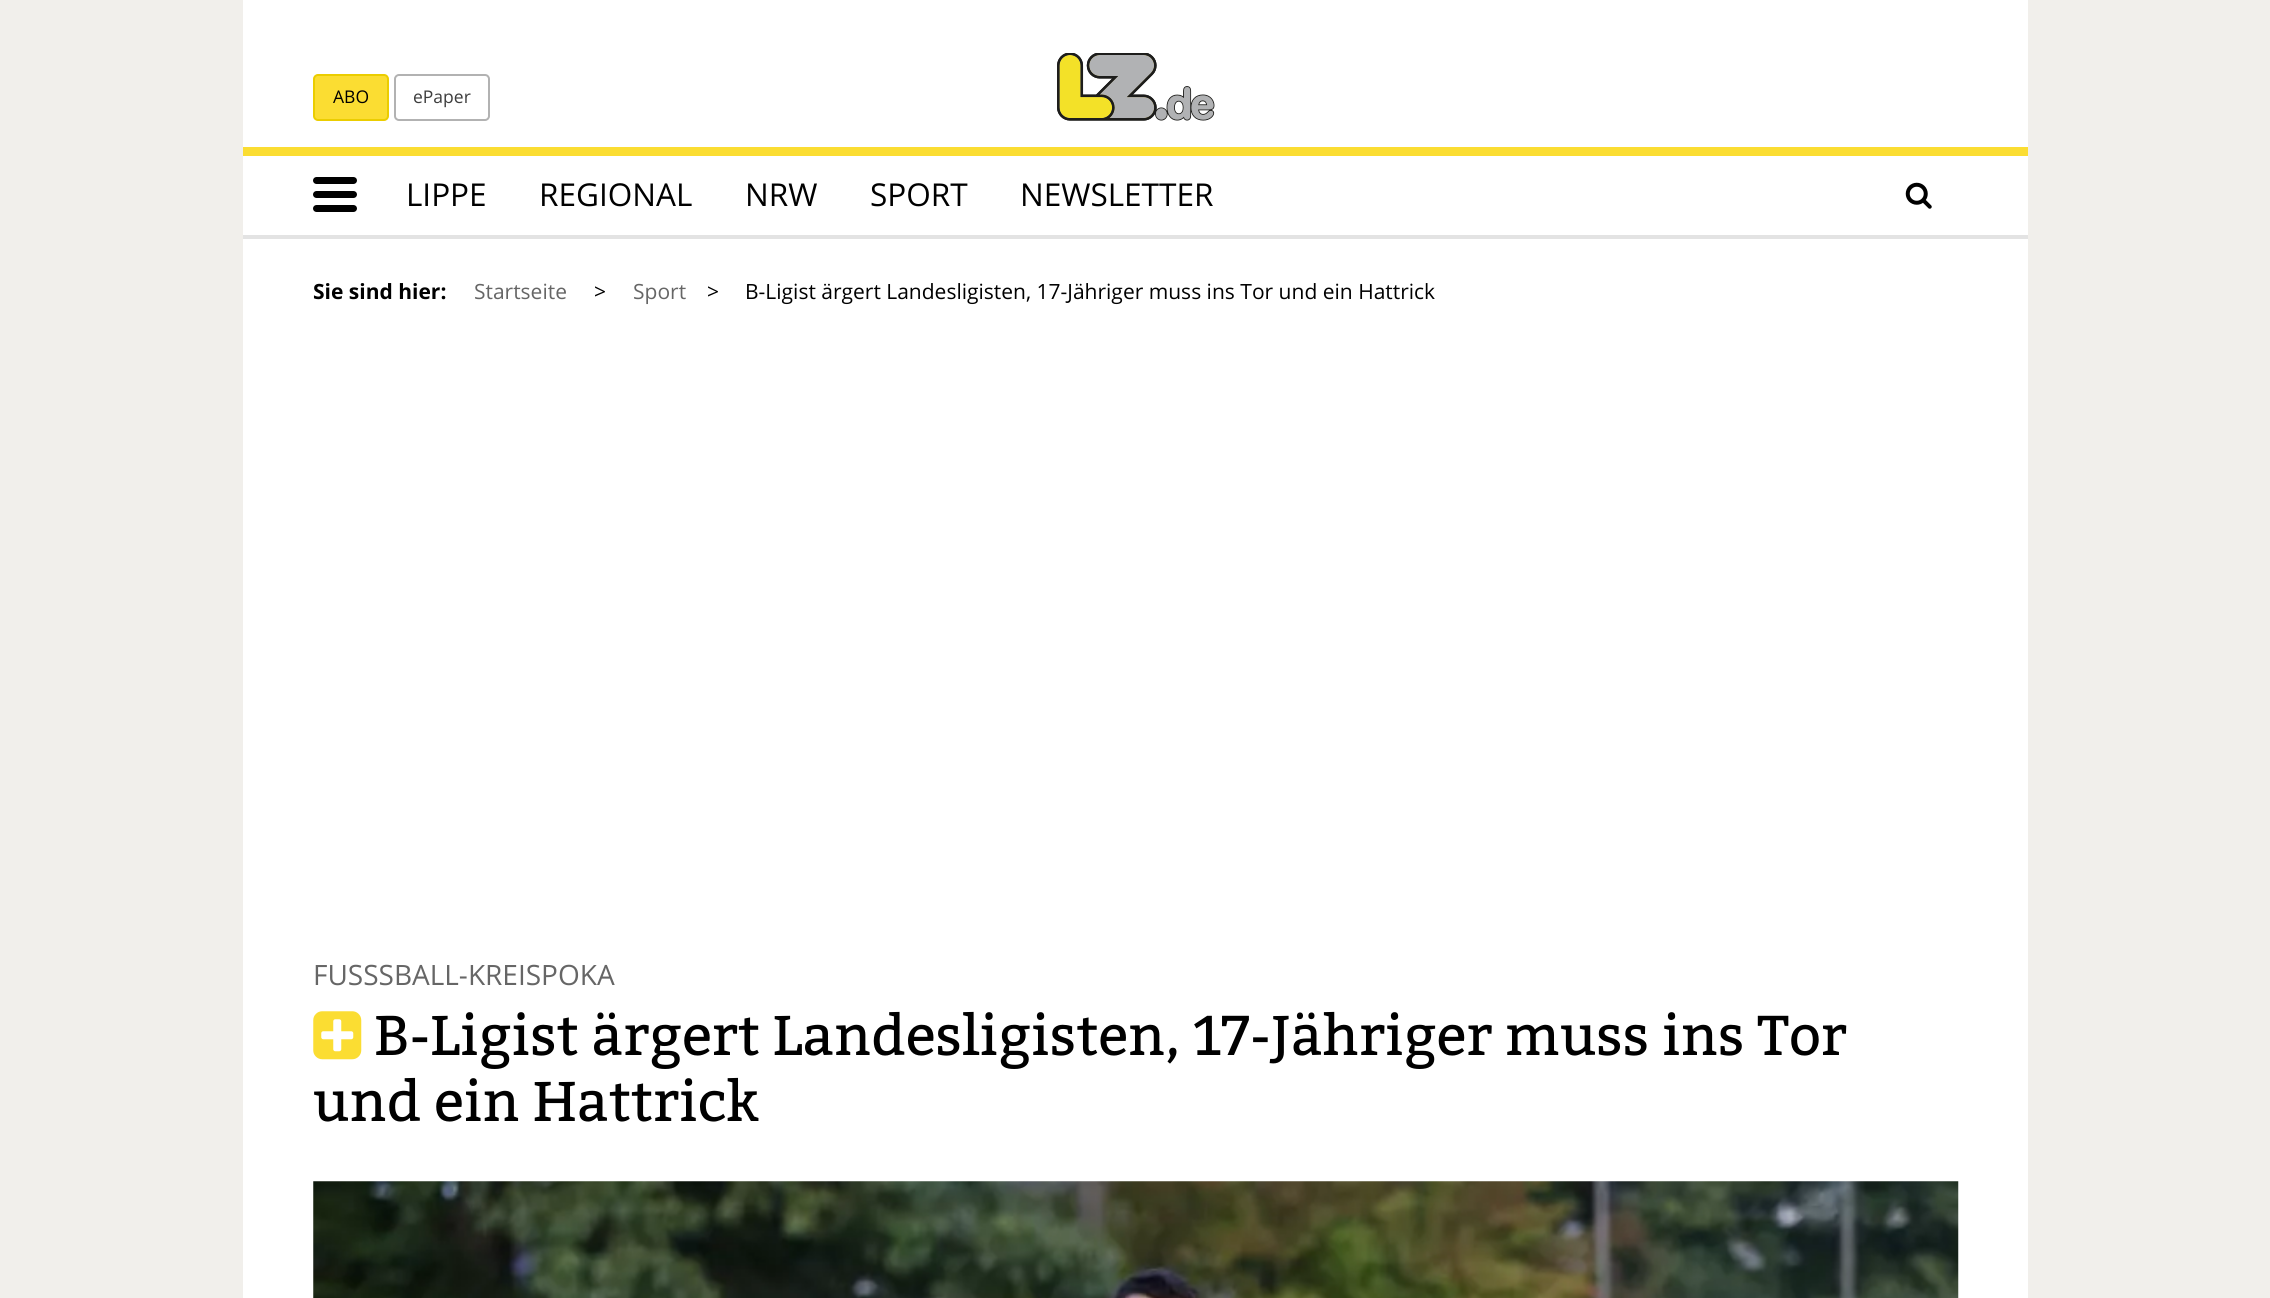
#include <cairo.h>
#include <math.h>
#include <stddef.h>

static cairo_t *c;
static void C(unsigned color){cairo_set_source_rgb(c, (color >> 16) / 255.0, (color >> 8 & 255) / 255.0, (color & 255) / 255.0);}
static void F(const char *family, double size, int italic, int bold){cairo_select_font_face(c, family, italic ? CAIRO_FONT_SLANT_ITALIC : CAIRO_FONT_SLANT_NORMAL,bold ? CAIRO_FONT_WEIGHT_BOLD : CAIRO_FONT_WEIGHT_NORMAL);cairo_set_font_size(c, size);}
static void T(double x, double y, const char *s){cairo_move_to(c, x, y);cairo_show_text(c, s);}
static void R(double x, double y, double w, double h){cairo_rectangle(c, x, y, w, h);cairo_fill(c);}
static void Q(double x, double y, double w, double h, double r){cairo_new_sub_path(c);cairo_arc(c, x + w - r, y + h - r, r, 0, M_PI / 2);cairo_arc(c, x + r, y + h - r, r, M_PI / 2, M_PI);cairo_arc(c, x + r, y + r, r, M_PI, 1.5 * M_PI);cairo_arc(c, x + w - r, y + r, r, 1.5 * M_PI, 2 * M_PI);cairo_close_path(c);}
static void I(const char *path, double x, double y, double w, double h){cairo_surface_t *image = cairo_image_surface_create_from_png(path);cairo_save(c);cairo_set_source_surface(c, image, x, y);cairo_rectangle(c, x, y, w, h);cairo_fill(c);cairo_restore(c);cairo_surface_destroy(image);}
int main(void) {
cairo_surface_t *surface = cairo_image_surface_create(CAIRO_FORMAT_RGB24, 2270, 1298);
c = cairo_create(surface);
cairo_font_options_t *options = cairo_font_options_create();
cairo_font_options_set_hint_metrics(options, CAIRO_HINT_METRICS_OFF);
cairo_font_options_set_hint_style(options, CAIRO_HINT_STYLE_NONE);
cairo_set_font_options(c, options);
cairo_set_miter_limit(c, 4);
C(0xf1efeb);
cairo_paint(c);
C(0xffffff);
R(243,0,1785,1298);
C(0xfbdd32);
Q(314,75,74,45,4);
cairo_fill_preserve(c);
C(0xebcd00);
cairo_stroke(c);
F("Open Sans",17.5,0,0);
C(0x000000);
T(333,103,"ABO");
Q(395,75,94,45,4);
C(0xb2b2b2);
cairo_stroke(c);
C(0x3d3d3d);
T(413,103,"ePaper");
I("1.png",1057,53,158,68);
C(0xfbdd32);
R(243,147,1785,9);
C(0xe3e3e3);
R(243,235,1785,4);
C(0x000000);
Q(313,177,44,7,3.5);
cairo_fill(c);
Q(313,191,44,7,3.5);
cairo_fill(c);
Q(313,205,44,7,3.5);
cairo_fill(c);
F("Open Sans",31.5,0,0);
T(406,206,"LIPPE");
T(539,206,"REGIONAL");
T(745,206,"NRW");
T(870,206,"SPORT");
T(1020,206,"NEWSLETTER");
I("2.png",1905,182,27,27);
F("Open Sans",21,0,1);
T(313,299,"Sie sind hier:");
F("Open Sans",21,0,0);
C(0x666666);
T(474,299,"Startseite");
C(0x000000);
T(594,299,">");
C(0x666666);
T(633,299,"Sport");
C(0x000000);
T(707,299,">");
T(745,299,"B-Ligist ärgert Landesligisten, 17-Jähriger muss ins Tor und ein Hattrick");
F("Open Sans",28,0,0);
C(0x666666);
T(313,985,"FUSSSBALL-KREISPOKA");
I("3.png",313,1011,49,49);
F("Bitter",56,0,0);
C(0x000000);
T(374,1055,"B-Ligist ärgert Landesligisten, 17-Jähriger muss ins Tor");
T(313,1121,"und ein Hattrick");
I("4.png",313,1181,1646,117);
cairo_surface_write_to_png(surface, "o.png");
cairo_font_options_destroy(options);
cairo_destroy(c);
cairo_surface_destroy(surface);
return 0;
}
